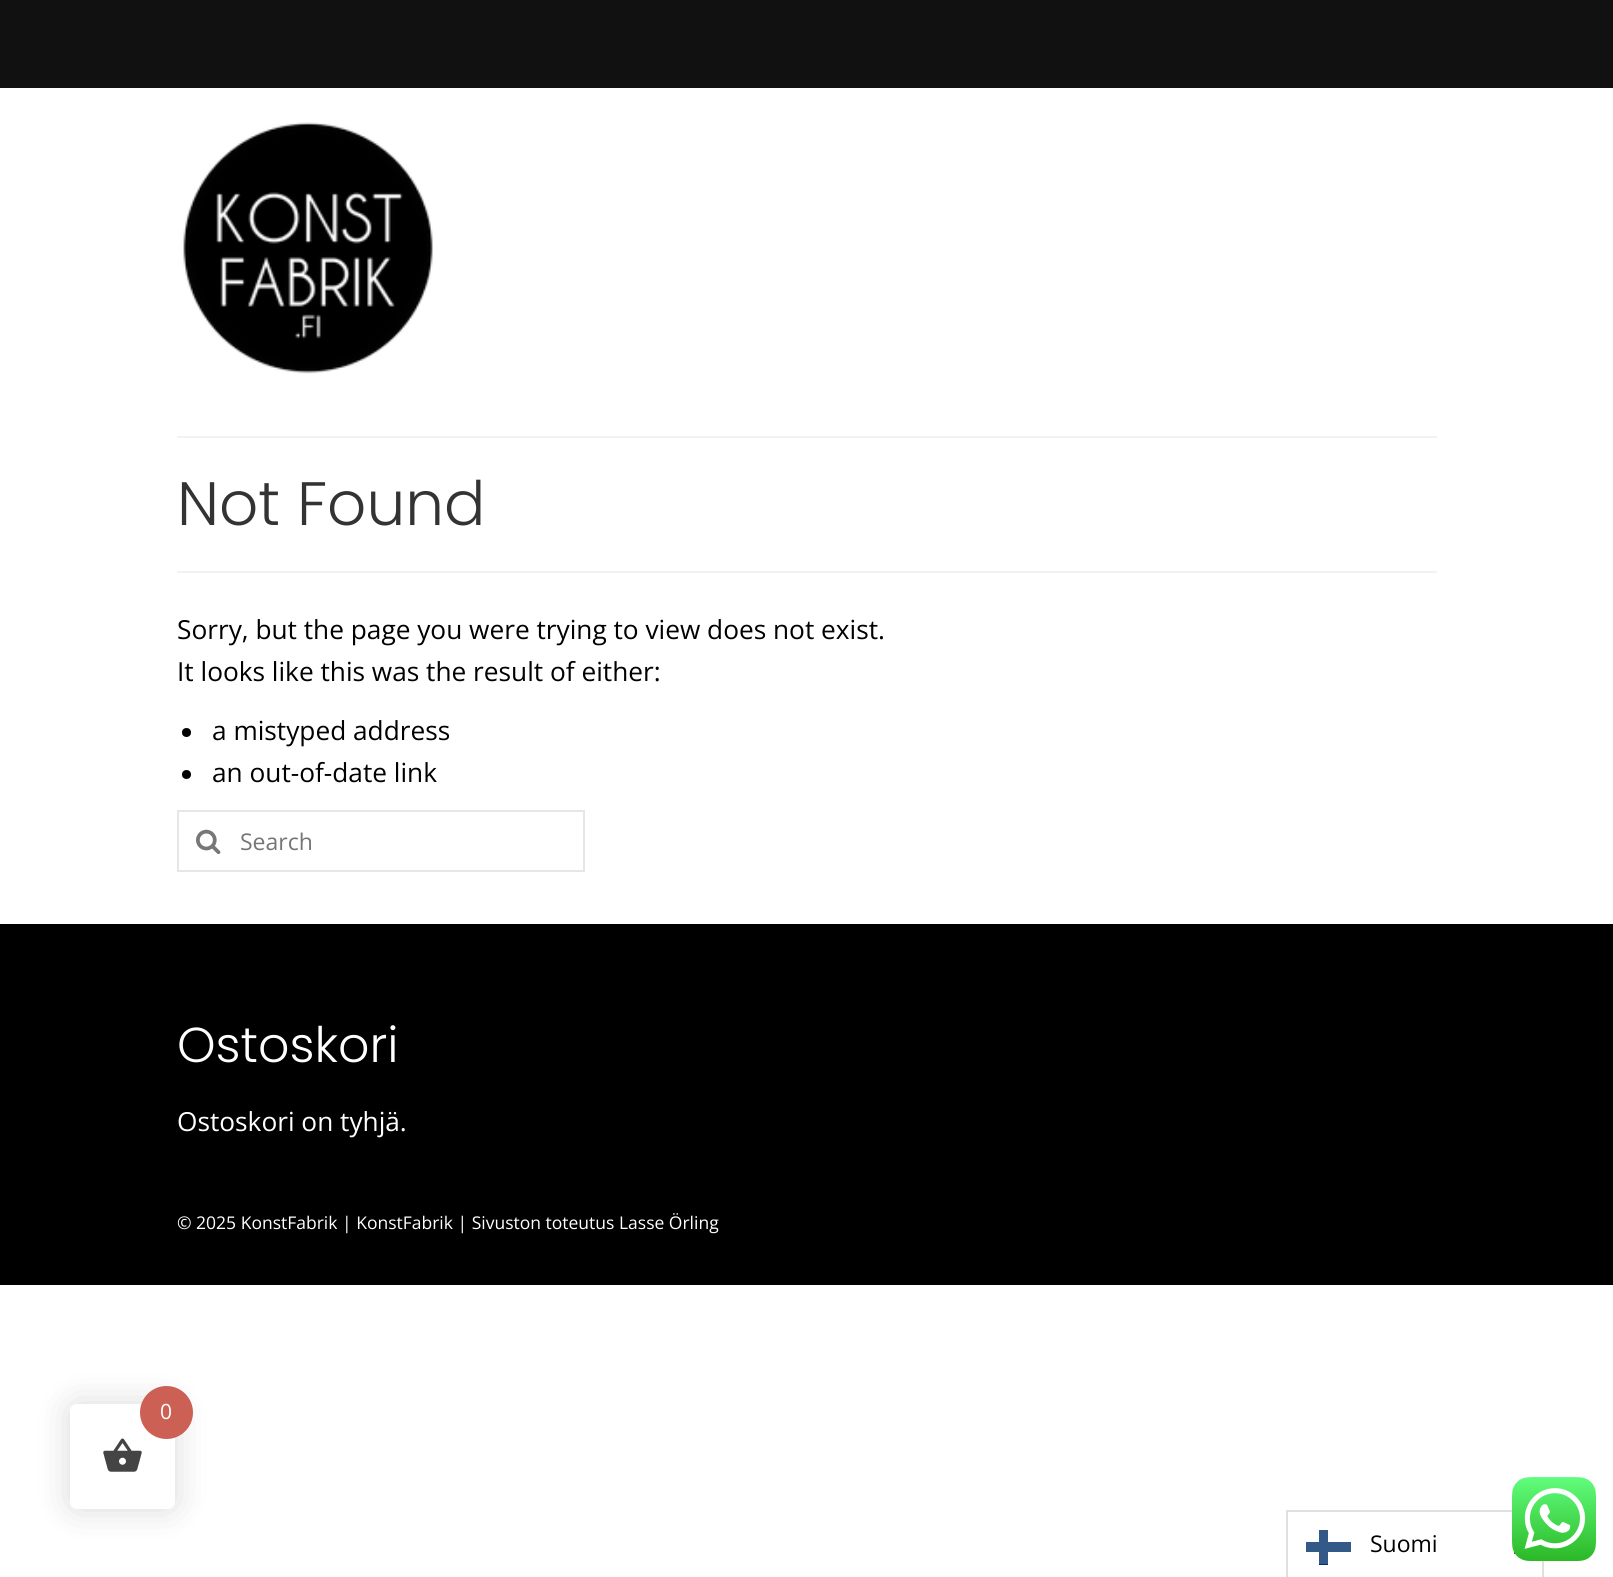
#include <cairo.h>
#include <math.h>
#include <stddef.h>

static cairo_t *c;
static void C(unsigned color){cairo_set_source_rgb(c, (color >> 16) / 255.0, (color >> 8 & 255) / 255.0, (color & 255) / 255.0);}
static void F(const char *family, double size, int italic, int bold){cairo_select_font_face(c, family, italic ? CAIRO_FONT_SLANT_ITALIC : CAIRO_FONT_SLANT_NORMAL,bold ? CAIRO_FONT_WEIGHT_BOLD : CAIRO_FONT_WEIGHT_NORMAL);cairo_set_font_size(c, size);}
static void T(double x, double y, const char *s){cairo_move_to(c, x, y);cairo_show_text(c, s);}
static void R(double x, double y, double w, double h){cairo_rectangle(c, x, y, w, h);cairo_fill(c);}
static void Q(double x, double y, double w, double h, double r){cairo_new_sub_path(c);cairo_arc(c, x + w - r, y + h - r, r, 0, M_PI / 2);cairo_arc(c, x + r, y + h - r, r, M_PI / 2, M_PI);cairo_arc(c, x + r, y + r, r, M_PI, 1.5 * M_PI);cairo_arc(c, x + w - r, y + r, r, 1.5 * M_PI, 2 * M_PI);cairo_close_path(c);}
static void S(double x, double y, double w, double h, double r, double blur, double alpha){cairo_push_group_with_content(c, CAIRO_CONTENT_ALPHA);cairo_set_operator(c, CAIRO_OPERATOR_SOURCE);for (int i = 15; i >= -15 && fmin(w, h) + blur * i / 3 > 0; i -= 2) {double e = blur * i / 6;cairo_set_source_rgba(c, 0, 0, 0, alpha * erfc((i - 1) / 8.5) / 2);Q(x - e, y - e, w + 2 * e, h + 2 * e, fmax(0, fmin(r + e + blur * .6, fmin(w, h) / 2 + e)));cairo_fill(c);}cairo_pattern_t *soft = cairo_pop_group(c);cairo_mask(c, soft);cairo_pattern_destroy(soft);}
static void I(const char *path, double x, double y, double w, double h){cairo_surface_t *image = cairo_image_surface_create_from_png(path);cairo_save(c);cairo_set_source_surface(c, image, x, y);cairo_rectangle(c, x, y, w, h);cairo_fill(c);cairo_restore(c);cairo_surface_destroy(image);}
int main(void) {
cairo_surface_t *surface = cairo_image_surface_create(CAIRO_FORMAT_RGB24, 1613, 1577);
c = cairo_create(surface);
cairo_font_options_t *options = cairo_font_options_create();
cairo_font_options_set_hint_metrics(options, CAIRO_HINT_METRICS_OFF);
cairo_font_options_set_hint_style(options, CAIRO_HINT_STYLE_NONE);
cairo_set_font_options(c, options);
cairo_set_miter_limit(c, 4);
C(0xffffff);
cairo_paint(c);
C(0x111111);
R(0,0,1613,88);
I("1.png",183,122,250,252);
C(0xf2f2f2);
R(177,436,1260,2);
R(177,571,1260,2);
F("Poppins Light",61.25,0,0);
C(0x333333);
T(177,525,"Not Found");
F("Open Sans",26.25,0,0);
C(0x000000);
T(177,639,"Sorry, but the page you were trying to view does not exist.");
T(177,681,"It looks like this was the result of either:");
cairo_new_path(c);
cairo_arc(c,186.5,732.5,4.5,0,2 * M_PI);
cairo_fill(c);
T(212,740,"a mistyped address");
cairo_new_path(c);
cairo_arc(c,186.5,774.5,4.5,0,2 * M_PI);
cairo_fill(c);
T(212,782,"an out-of-date link");
cairo_rectangle(c,178,811,406,60);
C(0xe7e7e7);
cairo_stroke(c);
I("2.png",196,829,25,26);
F("Open Sans",23,0,0);
C(0x757575);
T(240,850,"Search");
C(0x000000);
R(0,924,1613,361);
F("Poppins Light",49,0,0);
C(0xffffff);
T(177,1062,"Ostoskori");
F("Open Sans",26.25,0,0);
T(177,1131,"Ostoskori on tyhjä.");
F("Open Sans",17.5,0,0);
T(177,1229,"© 2025 KonstFabrik | KonstFabrik | Sivuston toteutus Lasse Örling");
C(0x000000);
S(70,1404,105,105,7,17.5,.15);
C(0xffffff);
Q(70,1404,105,105,7);
cairo_fill(c);
I("3.png",103,1438,39,34);
C(0xcc6055);
cairo_arc(c,166.5,1412.5,26.5,0,2 * M_PI);
cairo_fill(c);
F("Open Sans",21,0,0);
C(0xffffff);
T(160,1419,"0");
cairo_rectangle(c,1287,1511,256,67);
C(0xe0e0e0);
cairo_stroke(c);
C(0x335989);
R(1306,1542,45,10);
C(0x002f6c);
R(1319,1564,9,1);
C(0x335989);
R(1319,1530,9,34);
F("Open Sans",23,0,0);
C(0x000000);
T(1370,1552,"Suomi");
I("4.png",1514,1552,2,2);
I("5.png",1512,1477,84,84);
cairo_surface_write_to_png(surface, "o.png");
cairo_font_options_destroy(options);
cairo_destroy(c);
cairo_surface_destroy(surface);
return 0;
}
